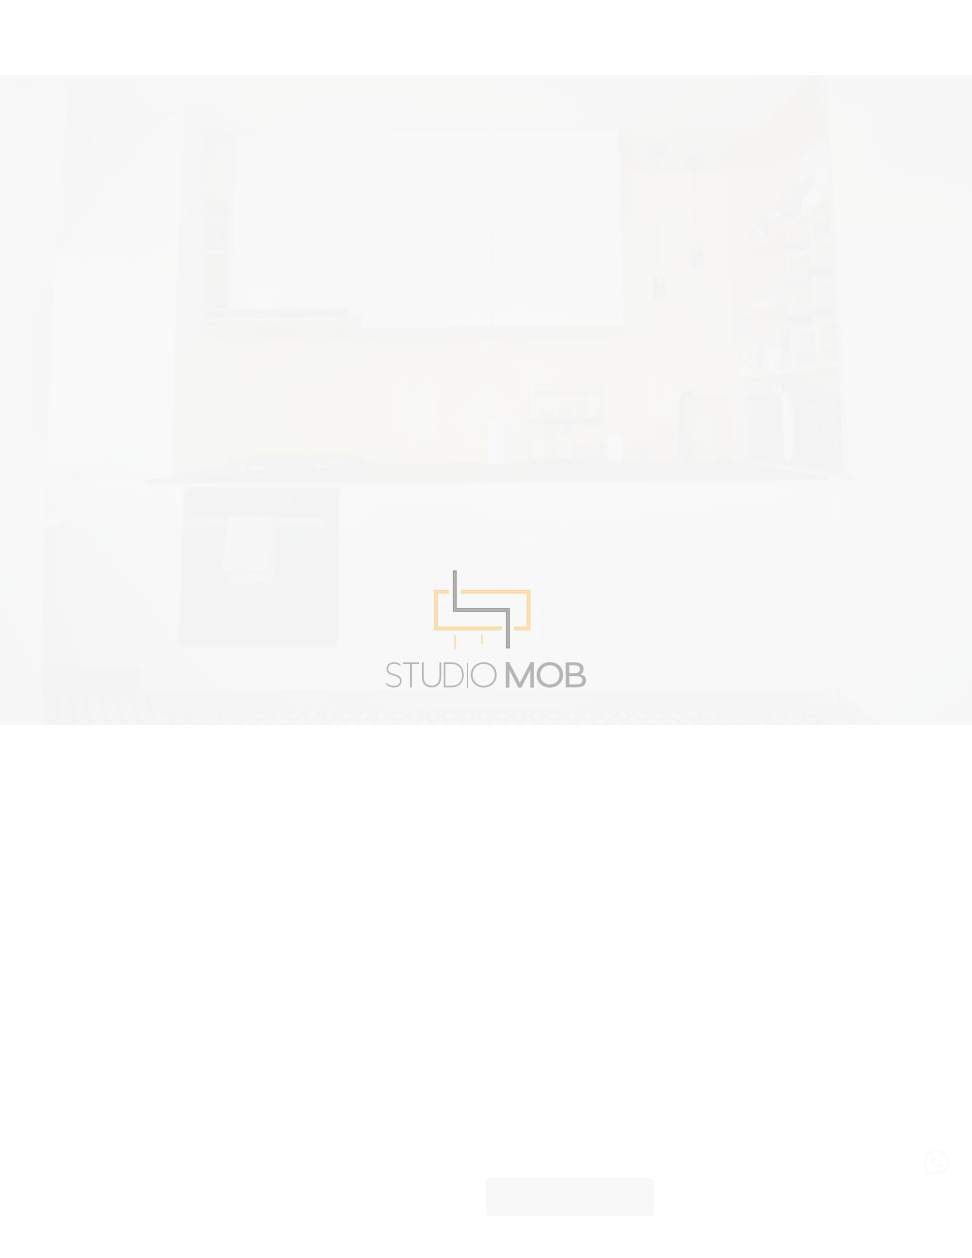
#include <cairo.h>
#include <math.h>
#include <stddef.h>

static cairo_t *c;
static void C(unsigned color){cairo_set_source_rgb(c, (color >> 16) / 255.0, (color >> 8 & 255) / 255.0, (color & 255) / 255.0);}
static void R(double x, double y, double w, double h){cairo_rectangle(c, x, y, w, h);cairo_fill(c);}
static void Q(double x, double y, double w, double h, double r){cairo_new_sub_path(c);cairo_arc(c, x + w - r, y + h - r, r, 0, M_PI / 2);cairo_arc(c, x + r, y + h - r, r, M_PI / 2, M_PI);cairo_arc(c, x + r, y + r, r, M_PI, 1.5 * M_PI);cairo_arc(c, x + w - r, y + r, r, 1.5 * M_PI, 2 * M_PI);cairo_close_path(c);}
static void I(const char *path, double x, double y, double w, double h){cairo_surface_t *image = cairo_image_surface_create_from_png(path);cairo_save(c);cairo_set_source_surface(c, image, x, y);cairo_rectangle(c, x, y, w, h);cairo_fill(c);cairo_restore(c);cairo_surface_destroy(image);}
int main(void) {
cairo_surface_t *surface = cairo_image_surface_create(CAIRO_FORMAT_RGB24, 972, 1258);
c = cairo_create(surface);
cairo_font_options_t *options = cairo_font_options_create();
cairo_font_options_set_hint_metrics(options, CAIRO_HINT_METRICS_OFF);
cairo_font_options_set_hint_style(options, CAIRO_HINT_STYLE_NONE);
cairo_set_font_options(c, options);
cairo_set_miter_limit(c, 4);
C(0xffffff);
cairo_paint(c);
I("1.png",0,75,972,650);
cairo_arc(c,936,1162,25.5,0,2 * M_PI);
C(0xdddddd);
cairo_set_line_width(c,1);
cairo_stroke(c);
I("2.png",924,1150,25,25);
C(0x69727d);
Q(486,1178,168,38,3);
cairo_fill(c);
cairo_set_source_rgba(c,1,1,1,0.95);
R(0,75,972,554);
R(0,629,972,587);
I("3.png",386,570,200,118);
cairo_surface_write_to_png(surface, "o.png");
cairo_font_options_destroy(options);
cairo_destroy(c);
cairo_surface_destroy(surface);
return 0;
}
